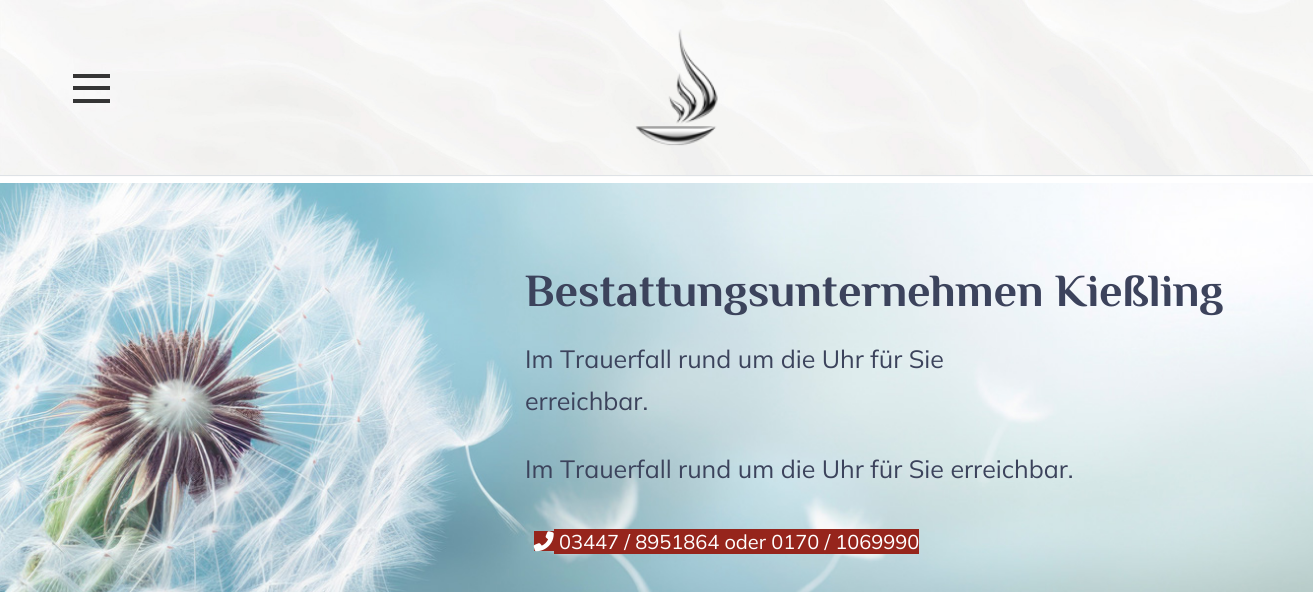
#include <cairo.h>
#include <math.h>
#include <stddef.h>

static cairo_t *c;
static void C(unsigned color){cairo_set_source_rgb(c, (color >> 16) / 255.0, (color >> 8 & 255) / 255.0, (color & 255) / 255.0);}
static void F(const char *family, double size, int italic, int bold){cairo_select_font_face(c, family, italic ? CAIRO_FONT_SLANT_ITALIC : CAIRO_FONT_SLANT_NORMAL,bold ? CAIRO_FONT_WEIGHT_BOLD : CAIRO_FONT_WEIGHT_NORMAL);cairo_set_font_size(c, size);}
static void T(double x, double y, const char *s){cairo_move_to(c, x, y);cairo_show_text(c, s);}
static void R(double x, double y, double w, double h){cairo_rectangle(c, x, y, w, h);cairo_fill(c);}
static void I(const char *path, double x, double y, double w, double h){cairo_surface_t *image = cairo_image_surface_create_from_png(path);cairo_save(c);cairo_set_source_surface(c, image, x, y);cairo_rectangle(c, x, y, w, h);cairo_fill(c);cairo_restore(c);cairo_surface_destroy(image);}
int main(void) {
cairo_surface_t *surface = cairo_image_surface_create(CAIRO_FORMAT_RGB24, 1313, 592);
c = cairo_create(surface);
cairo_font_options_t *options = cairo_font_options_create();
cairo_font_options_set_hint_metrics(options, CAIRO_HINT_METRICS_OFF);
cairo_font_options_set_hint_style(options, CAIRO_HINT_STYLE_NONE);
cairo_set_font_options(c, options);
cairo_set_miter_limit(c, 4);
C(0xffffff);
cairo_paint(c);
I("1.png",0,0,1313,177);
C(0xdee2e6);
R(0,175,1313,1);
C(0x353535);
R(73,86,37,4);
R(73,74,37,4);
R(73,99,37,4);
I("2.png",635,29,83,117);
I("3.png",0,183,1313,409);
F("Philosopher",46,0,1);
C(0x3c435c);
T(525,306,"Bestattungsunternehmen Kießling");
F("Mulish",25,0,0);
T(525,368,"Im Trauerfall rund um die Uhr für Sie");
T(525,410,"erreichbar.");
T(525,478,"Im Trauerfall rund um die Uhr für Sie erreichbar.");
C(0x96251c);
R(534,531,20,20);
R(554,529,365,25);
I("4.png",533,531,21,21);
F("Mulish",20,0,0);
C(0xffffff);
T(559,549,"03447 / 8951864 oder 0170 / 1069990");
cairo_surface_write_to_png(surface, "o.png");
cairo_font_options_destroy(options);
cairo_destroy(c);
cairo_surface_destroy(surface);
return 0;
}
